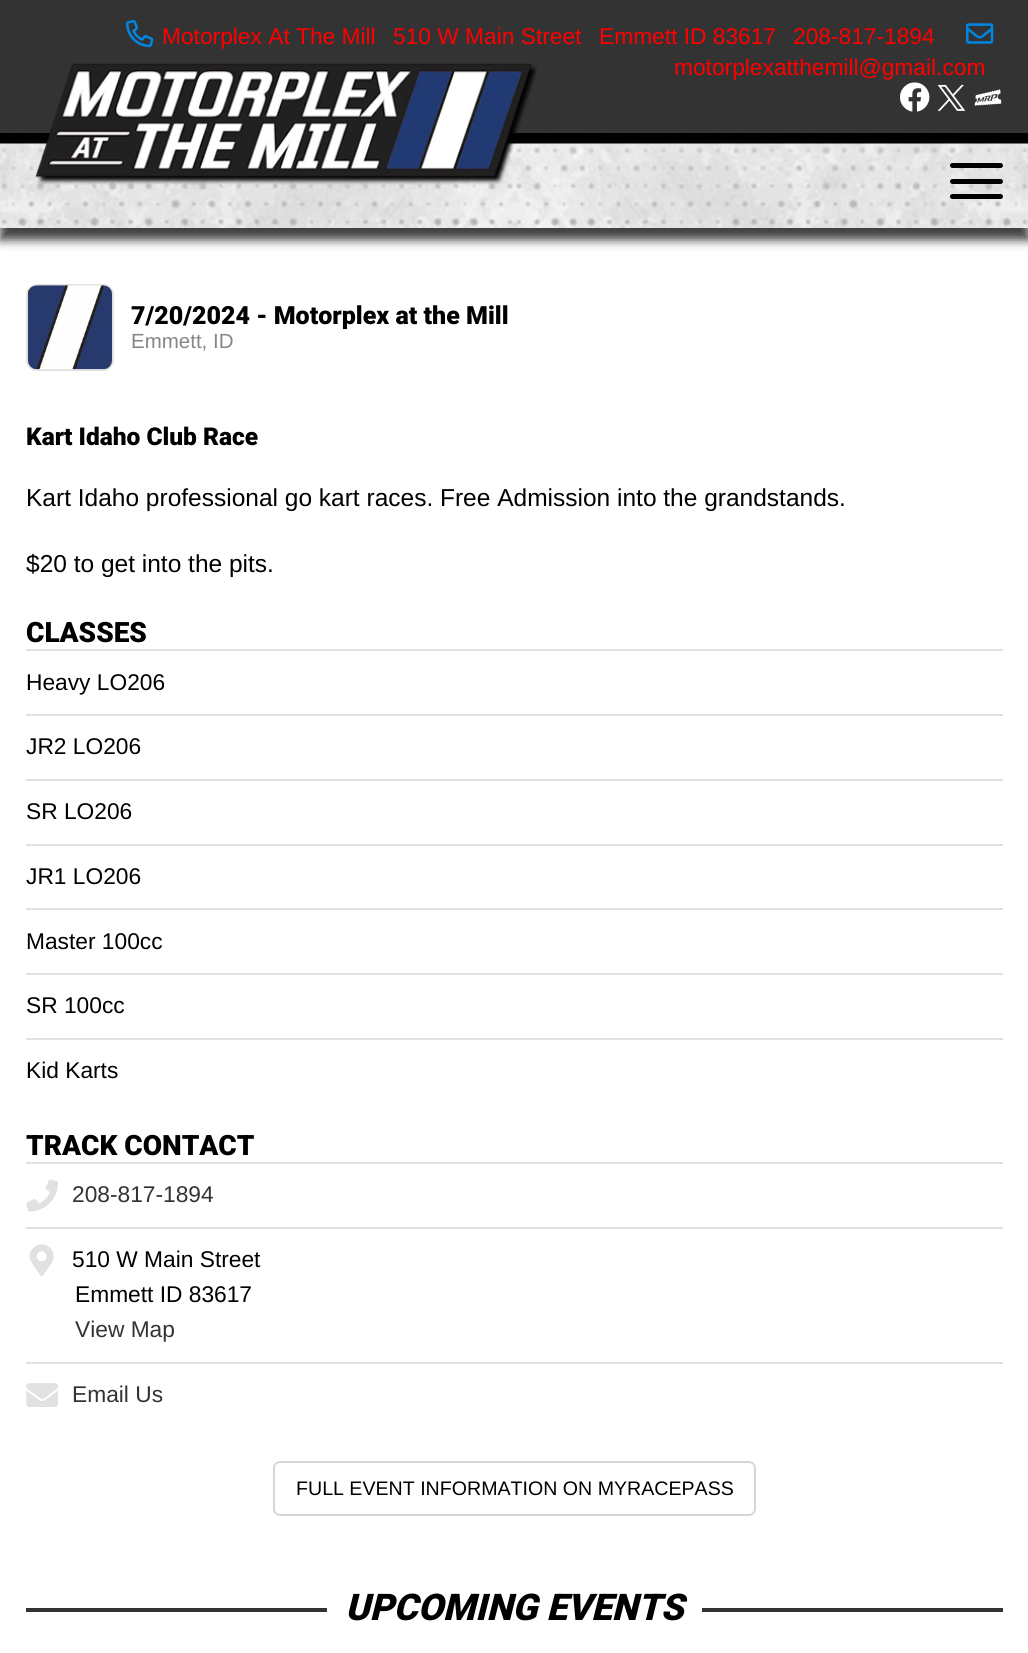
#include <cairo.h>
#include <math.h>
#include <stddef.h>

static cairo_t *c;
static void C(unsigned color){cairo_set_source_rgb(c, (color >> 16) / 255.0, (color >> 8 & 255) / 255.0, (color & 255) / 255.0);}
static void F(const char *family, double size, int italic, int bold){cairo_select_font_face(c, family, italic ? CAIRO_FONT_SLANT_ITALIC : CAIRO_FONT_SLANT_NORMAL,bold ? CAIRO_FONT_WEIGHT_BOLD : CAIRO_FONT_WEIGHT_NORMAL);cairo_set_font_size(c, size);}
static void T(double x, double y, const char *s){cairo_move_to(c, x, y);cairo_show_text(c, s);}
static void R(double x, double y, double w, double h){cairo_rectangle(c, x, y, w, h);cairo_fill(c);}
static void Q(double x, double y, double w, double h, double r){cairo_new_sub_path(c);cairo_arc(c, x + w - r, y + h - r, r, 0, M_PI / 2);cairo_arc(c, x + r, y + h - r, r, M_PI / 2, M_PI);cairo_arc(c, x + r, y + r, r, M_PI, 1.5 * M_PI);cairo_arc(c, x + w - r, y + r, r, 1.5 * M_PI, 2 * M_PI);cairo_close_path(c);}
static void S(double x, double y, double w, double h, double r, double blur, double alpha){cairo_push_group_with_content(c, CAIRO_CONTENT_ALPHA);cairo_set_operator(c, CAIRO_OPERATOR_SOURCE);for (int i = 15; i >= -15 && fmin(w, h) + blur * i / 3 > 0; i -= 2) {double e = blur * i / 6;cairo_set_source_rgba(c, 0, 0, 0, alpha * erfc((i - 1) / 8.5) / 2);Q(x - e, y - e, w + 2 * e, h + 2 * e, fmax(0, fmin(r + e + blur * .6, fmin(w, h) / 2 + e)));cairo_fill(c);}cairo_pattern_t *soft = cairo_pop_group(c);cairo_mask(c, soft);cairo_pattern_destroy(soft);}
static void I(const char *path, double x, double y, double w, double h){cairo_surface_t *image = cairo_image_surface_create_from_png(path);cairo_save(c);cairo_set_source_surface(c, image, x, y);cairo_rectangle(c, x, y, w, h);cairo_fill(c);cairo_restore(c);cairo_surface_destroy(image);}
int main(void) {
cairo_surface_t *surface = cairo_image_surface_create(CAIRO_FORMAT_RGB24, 1028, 1653);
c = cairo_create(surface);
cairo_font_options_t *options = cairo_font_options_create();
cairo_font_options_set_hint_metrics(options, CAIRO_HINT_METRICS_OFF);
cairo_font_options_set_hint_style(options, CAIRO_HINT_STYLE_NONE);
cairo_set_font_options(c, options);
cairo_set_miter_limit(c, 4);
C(0xffffff);
cairo_paint(c);
C(0x333333);
R(0,0,1028,133);
I("1.png",126,19,28,29);
F("Liberation Sans",22.75,0,0);
C(0xff0000);
T(162,44,"Motorplex At The Mill");
T(393,44,"510 W Main Street");
T(599,44,"Emmett ID 83617");
T(793,44,"208-817-1894");
I("2.png",966,23,28,21);
T(674,75,"motorplexatthemill@gmail.com");
I("3.png",900,82,30,30);
I("4.png",937,84,29,27);
I("5.png",974,89,28,17);
C(0x000000);
S(0,145,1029,95,0,5,.75);
I("6.png",0,133,1028,95);
I("7.png",35,63,502,122);
C(0x000000);
Q(950,163,53,5,2.5);
cairo_fill(c);
Q(950,179,53,5,2.5);
cairo_fill(c);
Q(950,194,53,5,2.5);
cairo_fill(c);
Q(27,285,86,85,10);
C(0xe1e1e1);
cairo_stroke(c);
I("8.png",28,285,84,85);
F("Roboto Black",25,0,0);
C(0x000000);
T(131,324,"7/20/2024 - Motorplex at the Mill");
F("Liberation Sans",20.5,0,0);
C(0x868686);
T(131,348,"Emmett, ID");
F("Roboto Black",24.5,0,0);
C(0x000000);
T(26,445,"Kart Idaho Club Race");
F("Liberation Sans",24.5,0,0);
T(26,506,"Kart Idaho professional go kart races. Free Admission into the grandstands.");
T(26,572,"$20 to get into the pits.");
F("Roboto Black",28,0,0);
T(26,642,"CLASSES");
C(0xe1e1e1);
R(26,649,977,2);
F("Liberation Sans",22.75,0,0);
C(0x000000);
T(26,690,"Heavy LO206");
C(0xe1e1e1);
R(26,714,977,2);
C(0x000000);
T(26,754,"JR2 LO206");
C(0xe1e1e1);
R(26,779,977,2);
C(0x000000);
T(26,819,"SR LO206");
C(0xe1e1e1);
R(26,844,977,2);
C(0x000000);
T(26,884,"JR1 LO206");
C(0xe1e1e1);
R(26,908,977,2);
C(0x000000);
T(26,949,"Master 100cc");
C(0xe1e1e1);
R(26,973,977,2);
C(0x000000);
T(26,1013,"SR 100cc");
C(0xe1e1e1);
R(26,1038,977,2);
C(0x000000);
T(26,1078,"Kid Karts");
F("Roboto Black",28,0,0);
T(26,1155,"TRACK CONTACT");
C(0xe1e1e1);
R(26,1162,977,2);
I("9.png",26,1179,32,33);
F("Liberation Sans",22.75,0,0);
C(0x333333);
T(72,1202,"208-817-1894");
C(0xe1e1e1);
R(26,1227,977,2);
I("10.png",29,1244,25,33);
C(0x000000);
T(72,1267,"510 W Main Street");
T(75,1302,"Emmett ID 83617");
C(0x333333);
T(75,1337,"View Map");
C(0xe1e1e1);
R(26,1362,977,2);
I("11.png",26,1383,32,24);
C(0x333333);
T(72,1402,"Email Us");
Q(274,1462,481,53,6);
C(0xd7d7d7);
cairo_stroke(c);
F("Liberation Sans",19.6,0,0);
C(0x000000);
T(296,1495,"FULL EVENT INFORMATION ON MYRACEPASS");
C(0x333333);
R(26,1608,301,4);
F("Roboto Black",36.75,1,0);
C(0x000000);
T(345,1620,"UPCOMING EVENTS");
C(0x333333);
R(702,1608,301,4);
cairo_surface_write_to_png(surface, "o.png");
cairo_font_options_destroy(options);
cairo_destroy(c);
cairo_surface_destroy(surface);
return 0;
}
